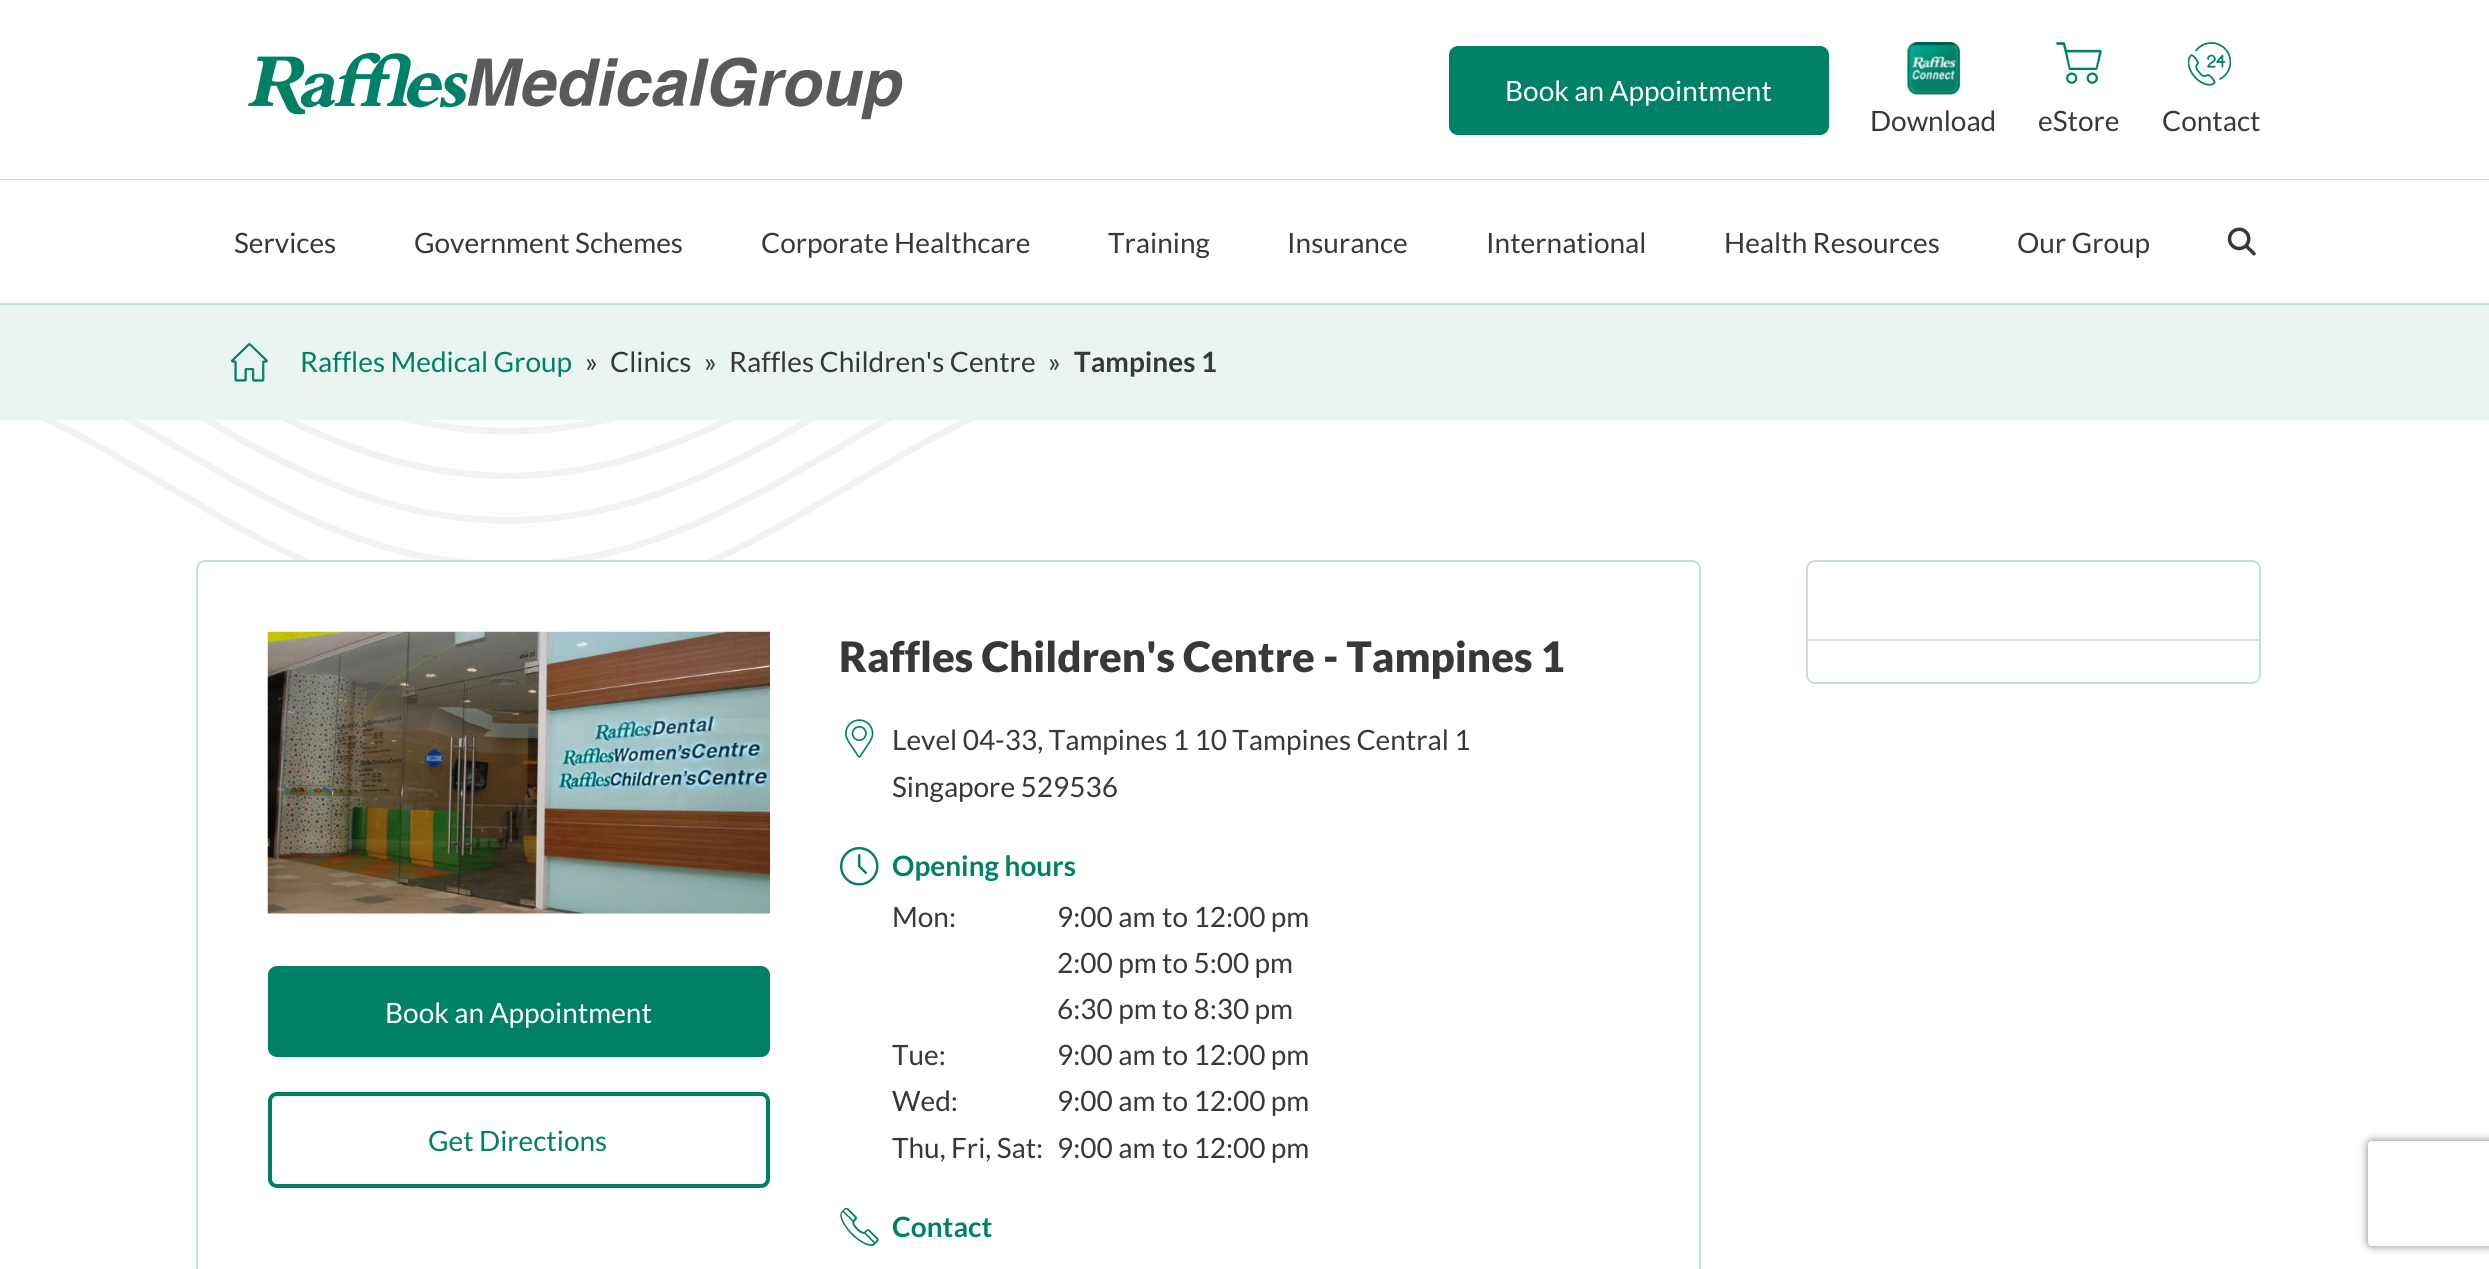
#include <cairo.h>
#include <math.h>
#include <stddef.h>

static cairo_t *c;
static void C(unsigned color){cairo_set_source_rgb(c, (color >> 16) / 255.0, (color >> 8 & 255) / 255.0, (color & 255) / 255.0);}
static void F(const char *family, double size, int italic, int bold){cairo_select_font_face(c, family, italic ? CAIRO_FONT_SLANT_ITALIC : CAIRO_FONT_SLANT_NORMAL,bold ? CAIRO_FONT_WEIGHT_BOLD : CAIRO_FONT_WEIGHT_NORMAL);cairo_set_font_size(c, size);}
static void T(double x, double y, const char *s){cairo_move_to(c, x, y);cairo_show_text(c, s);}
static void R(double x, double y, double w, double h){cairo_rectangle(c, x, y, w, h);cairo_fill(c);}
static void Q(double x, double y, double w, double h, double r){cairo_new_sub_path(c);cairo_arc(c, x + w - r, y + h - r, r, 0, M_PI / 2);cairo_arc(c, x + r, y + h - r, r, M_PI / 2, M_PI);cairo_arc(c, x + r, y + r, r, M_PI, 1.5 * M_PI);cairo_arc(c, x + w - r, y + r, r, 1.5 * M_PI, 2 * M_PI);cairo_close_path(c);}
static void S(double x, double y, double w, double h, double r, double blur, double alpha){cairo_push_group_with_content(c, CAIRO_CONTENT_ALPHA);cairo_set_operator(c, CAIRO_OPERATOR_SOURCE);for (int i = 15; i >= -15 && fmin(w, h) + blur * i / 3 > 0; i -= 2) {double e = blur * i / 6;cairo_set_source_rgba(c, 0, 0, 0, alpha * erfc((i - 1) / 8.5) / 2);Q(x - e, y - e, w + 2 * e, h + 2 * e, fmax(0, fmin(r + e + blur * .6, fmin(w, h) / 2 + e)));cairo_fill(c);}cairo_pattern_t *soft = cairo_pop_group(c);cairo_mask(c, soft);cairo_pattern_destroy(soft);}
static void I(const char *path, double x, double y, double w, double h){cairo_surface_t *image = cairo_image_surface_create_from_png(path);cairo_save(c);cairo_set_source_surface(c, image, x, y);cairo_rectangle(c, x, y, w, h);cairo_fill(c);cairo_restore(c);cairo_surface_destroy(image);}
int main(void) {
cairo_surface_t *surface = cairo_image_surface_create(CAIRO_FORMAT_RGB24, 2489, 1269);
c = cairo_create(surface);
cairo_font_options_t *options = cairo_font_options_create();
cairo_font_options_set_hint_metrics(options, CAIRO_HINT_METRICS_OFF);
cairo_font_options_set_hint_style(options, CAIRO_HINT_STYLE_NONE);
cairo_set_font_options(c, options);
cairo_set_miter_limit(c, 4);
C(0xffffff);
cairo_paint(c);
C(0xc7e0da);
R(0,179,2489,1);
I("1.png",247,52,656,68);
C(0x008066);
Q(1449,46,380,89,9);
cairo_fill(c);
F("Lato",28,0,0);
C(0xffffff);
T(1505,101,"Book an Appointment");
I("2.png",1907,42,53,53);
C(0x38383a);
T(1870,131,"Download");
I("3.png",2056,42,46,42);
T(2038,131,"eStore");
I("4.png",2188,42,43,44);
T(2162,131,"Contact");
C(0xc7e0da);
R(0,303,2489,2);
C(0x38383a);
T(234,253,"Services");
T(414,253,"Government Schemes");
T(761,253,"Corporate Healthcare");
T(1108,253,"Training");
T(1287,253,"Insurance");
T(1486,253,"International");
T(1724,253,"Health Resources");
T(2017,253,"Our Group");
I("5.png",2227,227,29,29);
C(0xeaf4f0);
R(0,305,2489,115);
I("6.png",231,343,37,39);
C(0x008066);
T(300,372,"Raffles Medical Group");
C(0x38383a);
T(585,372,"»");
T(610,372,"Clinics");
T(704,372,"»");
T(729,372,"Raffles Children's Centre");
T(1048,372,"»");
F("Lato",28,0,1);
T(1074,372,"Tampines 1");
I("7.png",41,420,934,140);
Q(1807,561,453,122,8);
C(0xc7e0da);
cairo_stroke(c);
C(0xdddddd);
R(1808,639,451,2);
Q(197,561,1503,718,8);
C(0xc7e0da);
cairo_stroke(c);
I("8.png",267,631,503,283);
C(0x008066);
Q(268,966,502,91,9);
cairo_fill(c);
F("Lato",28,0,0);
C(0xffffff);
T(385,1023,"Book an Appointment");
Q(270,1094,498,92,7);
C(0x008066);
cairo_set_line_width(c,4);
cairo_stroke(c);
T(428,1151,"Get Directions");
F("Lato Black",42,0,0);
C(0x38383a);
T(839,672,"Raffles Children's Centre - Tampines 1");
I("9.png",845,719,29,39);
F("Lato",28,0,0);
T(892,750,"Level 04-33, Tampines 1 10 Tampines Central 1");
T(892,797,"Singapore 529536");
I("10.png",840,847,39,39);
F("Lato",28,0,1);
C(0x008066);
T(892,876,"Opening hours");
F("Lato",28,0,0);
C(0x38383a);
T(892,927,"Mon:");
T(1057,927,"9:00 am");
T(1162,927,"to 12:00 pm");
T(1057,973,"2:00 pm to 5:00 pm");
T(1057,1019,"6:30 pm to 8:30 pm");
T(892,1065,"Tue:");
T(1057,1065,"9:00 am");
T(1162,1065,"to 12:00 pm");
T(892,1111,"Wed:");
T(1057,1111,"9:00 am");
T(1162,1111,"to 12:00 pm");
T(892,1158,"Thu, Fri, Sat:");
T(1057,1158,"9:00 am");
T(1162,1158,"to 12:00 pm");
I("11.png",840,1208,39,38);
F("Lato",28,0,1);
C(0x008066);
T(892,1237,"Contact");
cairo_save(c);
cairo_set_fill_rule(c,CAIRO_FILL_RULE_EVEN_ODD);
cairo_new_path(c);
cairo_move_to(c,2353,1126);
cairo_line_to(c,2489,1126);
cairo_line_to(c,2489,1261);
cairo_line_to(c,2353,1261);
cairo_close_path(c);
cairo_move_to(c,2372,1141);
cairo_line_to(c,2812,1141);
cairo_curve_to(c,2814,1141,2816,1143,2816,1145);
cairo_line_to(c,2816,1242);
cairo_curve_to(c,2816,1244,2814,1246,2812,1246);
cairo_line_to(c,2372,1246);
cairo_curve_to(c,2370,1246,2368,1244,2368,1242);
cairo_line_to(c,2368,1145);
cairo_curve_to(c,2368,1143,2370,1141,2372,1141);
cairo_close_path(c);
cairo_clip(c);
C(0x808080);
S(2368,1141,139,105,4,4.5,1);
cairo_restore(c);
cairo_surface_write_to_png(surface, "o.png");
cairo_font_options_destroy(options);
cairo_destroy(c);
cairo_surface_destroy(surface);
return 0;
}
